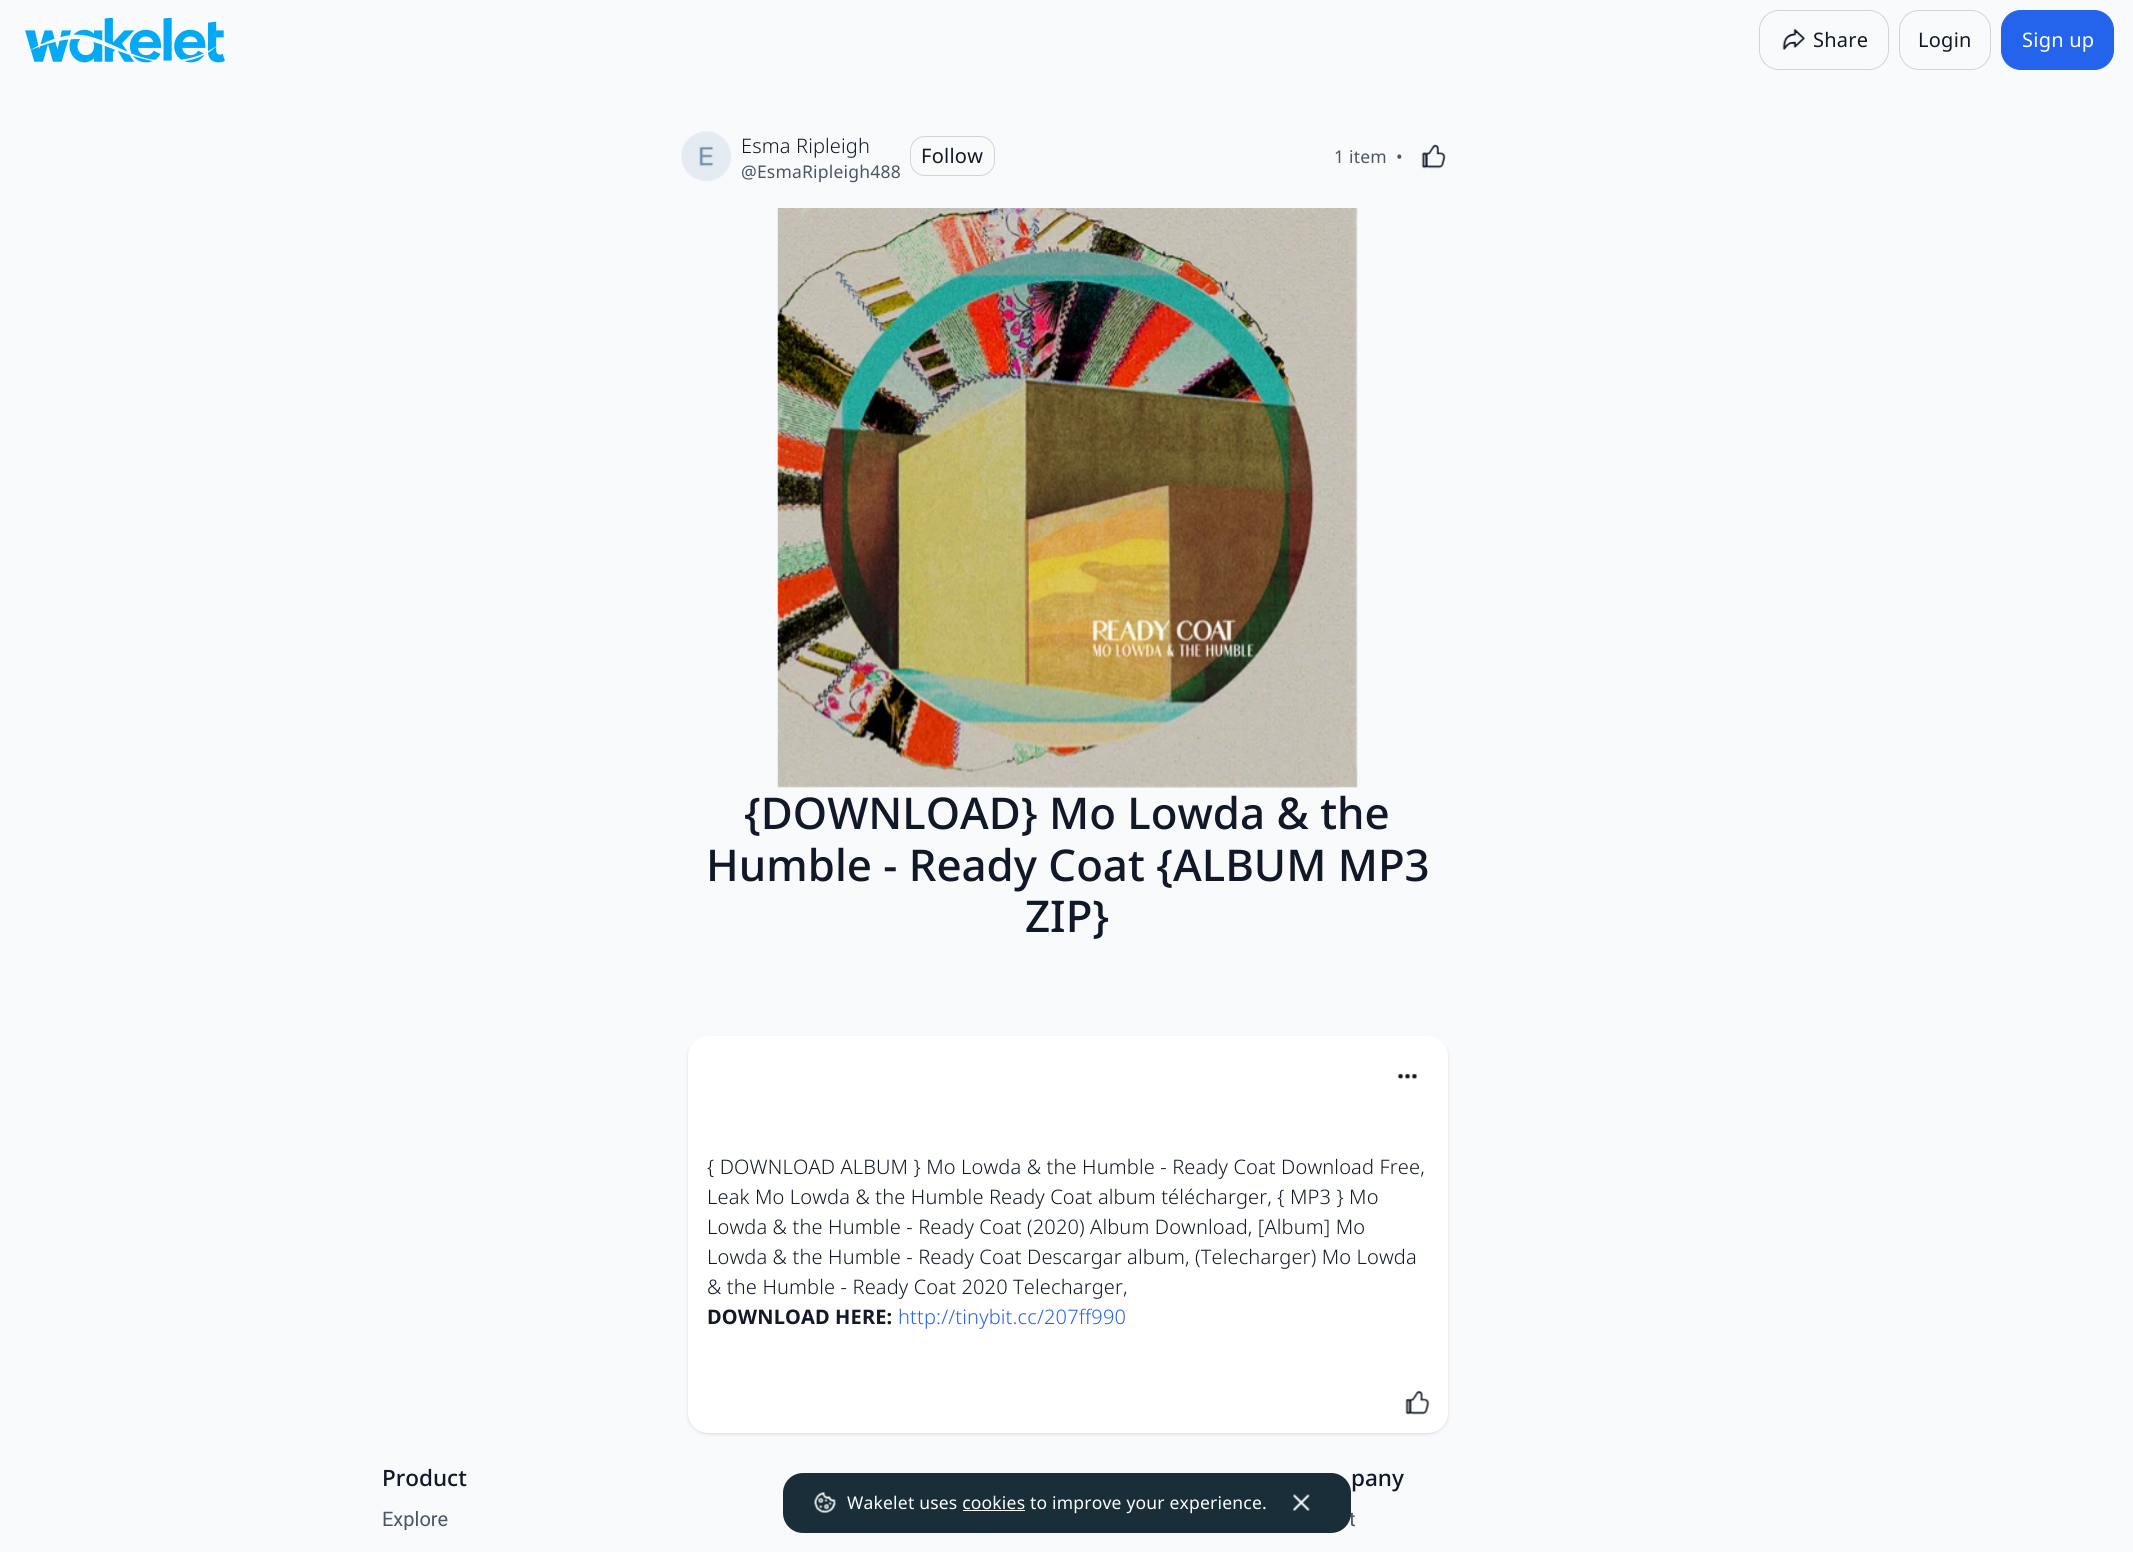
#include <cairo.h>
#include <math.h>
#include <stddef.h>

static cairo_t *c;
static void C(unsigned color){cairo_set_source_rgb(c, (color >> 16) / 255.0, (color >> 8 & 255) / 255.0, (color & 255) / 255.0);}
static void F(const char *family, double size, int italic, int bold){cairo_select_font_face(c, family, italic ? CAIRO_FONT_SLANT_ITALIC : CAIRO_FONT_SLANT_NORMAL,bold ? CAIRO_FONT_WEIGHT_BOLD : CAIRO_FONT_WEIGHT_NORMAL);cairo_set_font_size(c, size);}
static void T(double x, double y, const char *s){cairo_move_to(c, x, y);cairo_show_text(c, s);}
static void L(double x, double y, const char *s, double letter, double word){cairo_move_to(c, x, y);while (*s) {char ch[5] = {0};int n = 0;do ch[n++] = *s++; while ((*s & 0xC0) == 0x80);cairo_show_text(c, ch);cairo_rel_move_to(c, letter + word * (*ch == ' '), 0);}}
static void R(double x, double y, double w, double h){cairo_rectangle(c, x, y, w, h);cairo_fill(c);}
static void Q(double x, double y, double w, double h, double r){cairo_new_sub_path(c);cairo_arc(c, x + w - r, y + h - r, r, 0, M_PI / 2);cairo_arc(c, x + r, y + h - r, r, M_PI / 2, M_PI);cairo_arc(c, x + r, y + r, r, M_PI, 1.5 * M_PI);cairo_arc(c, x + w - r, y + r, r, 1.5 * M_PI, 2 * M_PI);cairo_close_path(c);}
static void S(double x, double y, double w, double h, double r, double blur, double alpha){cairo_push_group_with_content(c, CAIRO_CONTENT_ALPHA);cairo_set_operator(c, CAIRO_OPERATOR_SOURCE);for (int i = 15; i >= -15 && fmin(w, h) + blur * i / 3 > 0; i -= 2) {double e = blur * i / 6;cairo_set_source_rgba(c, 0, 0, 0, alpha * erfc((i - 1) / 8.5) / 2);Q(x - e, y - e, w + 2 * e, h + 2 * e, fmax(0, fmin(r + e + blur * .6, fmin(w, h) / 2 + e)));cairo_fill(c);}cairo_pattern_t *soft = cairo_pop_group(c);cairo_mask(c, soft);cairo_pattern_destroy(soft);}
static void I(const char *path, double x, double y, double w, double h){cairo_surface_t *image = cairo_image_surface_create_from_png(path);cairo_save(c);cairo_set_source_surface(c, image, x, y);cairo_rectangle(c, x, y, w, h);cairo_fill(c);cairo_restore(c);cairo_surface_destroy(image);}
int main(void) {
cairo_surface_t *surface = cairo_image_surface_create(CAIRO_FORMAT_RGB24, 2133, 1552);
c = cairo_create(surface);
cairo_font_options_t *options = cairo_font_options_create();
cairo_font_options_set_hint_metrics(options, CAIRO_HINT_METRICS_OFF);
cairo_font_options_set_hint_style(options, CAIRO_HINT_STYLE_NONE);
cairo_set_font_options(c, options);
cairo_set_miter_limit(c, 4);
C(0xf9fafb);
cairo_paint(c);
I("1.png",25,18,200,45);
Q(1759.5,10.5,129,59,19.5);
C(0xd1d5db);
cairo_set_line_width(c,1);
cairo_stroke(c);
I("2.png",1782,29,23,21);
F("Noto Sans",20,0,0);
C(0x111827);
L(1813,47,"Share",.25,0);
Q(1899.5,10.5,91,59,19.5);
C(0xd1d5db);
cairo_stroke(c);
C(0x111827);
L(1918,47,"Login",.25,0);
C(0x2463eb);
Q(2001.5,10.5,112,59,19.5);
cairo_fill_preserve(c);
cairo_stroke(c);
C(0xffffff);
L(2022,47,"Sign up",.25,0);
I("3.png",681,131,51,51);
F("Noto Sans Light",20,0,0);
C(0x111827);
L(741,153,"Esma Ripleigh",.15,0);
F("Noto Sans",17.5,0,0);
C(0x4b5563);
L(741,178,"@EsmaRipleigh488",.2,0);
Q(910.5,136.5,84,39,14.5);
C(0xd1d5db);
cairo_stroke(c);
F("Noto Sans",20,0,0);
C(0x111827);
L(921,163,"Follow",.25,0);
F("Noto Sans",17.5,0,0);
C(0x4b5563);
L(1334,163,"1 item",.2,0);
L(1396,163,"•",.2,0);
I("4.png",1421,144,25,25);
I("5.png",777,208,581,580);
F("Noto Sans Medium",43.75,0,0);
C(0x111827);
T(744,829,"{DOWNLOAD} Mo Lowda & the");
T(706,881,"Humble - Ready Coat {ALBUM MP3");
T(1025,932,"ZIP}");
C(0x00183d);
S(688,1038,760,396,20,1,.06);
S(688,1038,760,396,20,2,.1);
C(0xffffff);
Q(688,1036,760,397,20);
cairo_fill(c);
I("6.png",1397,1073,21,7);
F("Noto Sans Light",20,0,0);
C(0x111827);
L(707,1174,"{ DOWNLOAD ALBUM } Mo Lowda & the Humble - Ready Coat Download Free,",.15,0);
L(707,1204,"Leak Mo Lowda & the Humble Ready Coat album télécharger, { MP3 } Mo",.15,0);
L(707,1234,"Lowda & the Humble - Ready Coat (2020) Album Download, [Album] Mo",.15,0);
L(707,1264,"Lowda & the Humble - Ready Coat Descargar album, (Telecharger) Mo Lowda",.15,0);
L(707,1294,"& the Humble - Ready Coat 2020 Telecharger,",.15,0);
F("Noto Sans",20,0,1);
L(707,1324,"DOWNLOAD HERE:",.15,0);
F("Noto Sans Light",20,0,0);
C(0x2463eb);
L(898,1324,"http://tinybit.cc/207ff990",.15,0);
I("7.png",1405,1391,25,24);
F("Noto Sans Medium",22.5,0,0);
C(0x111827);
T(382,1486,"Product");
F("Roboto",20,0,0);
C(0x4b5563);
T(382,1526,"Explore");
F("Noto Sans Medium",22.5,0,0);
C(0x111827);
T(1351,1486,"pany");
F("Roboto",20,0,0);
C(0x4b5563);
T(1349,1526,"t");
C(0x192e38);
Q(783,1473,568,60,20);
cairo_fill(c);
I("8.png",814,1492,22,21);
F("Noto Sans",17.5,0,0);
C(0xffffff);
L(847,1509,"Wakelet uses cookies to improve your experience.",.2,0);
R(963,1510,62,1);
I("9.png",1292,1494,18,17);
cairo_surface_write_to_png(surface, "o.png");
cairo_font_options_destroy(options);
cairo_destroy(c);
cairo_surface_destroy(surface);
return 0;
}
